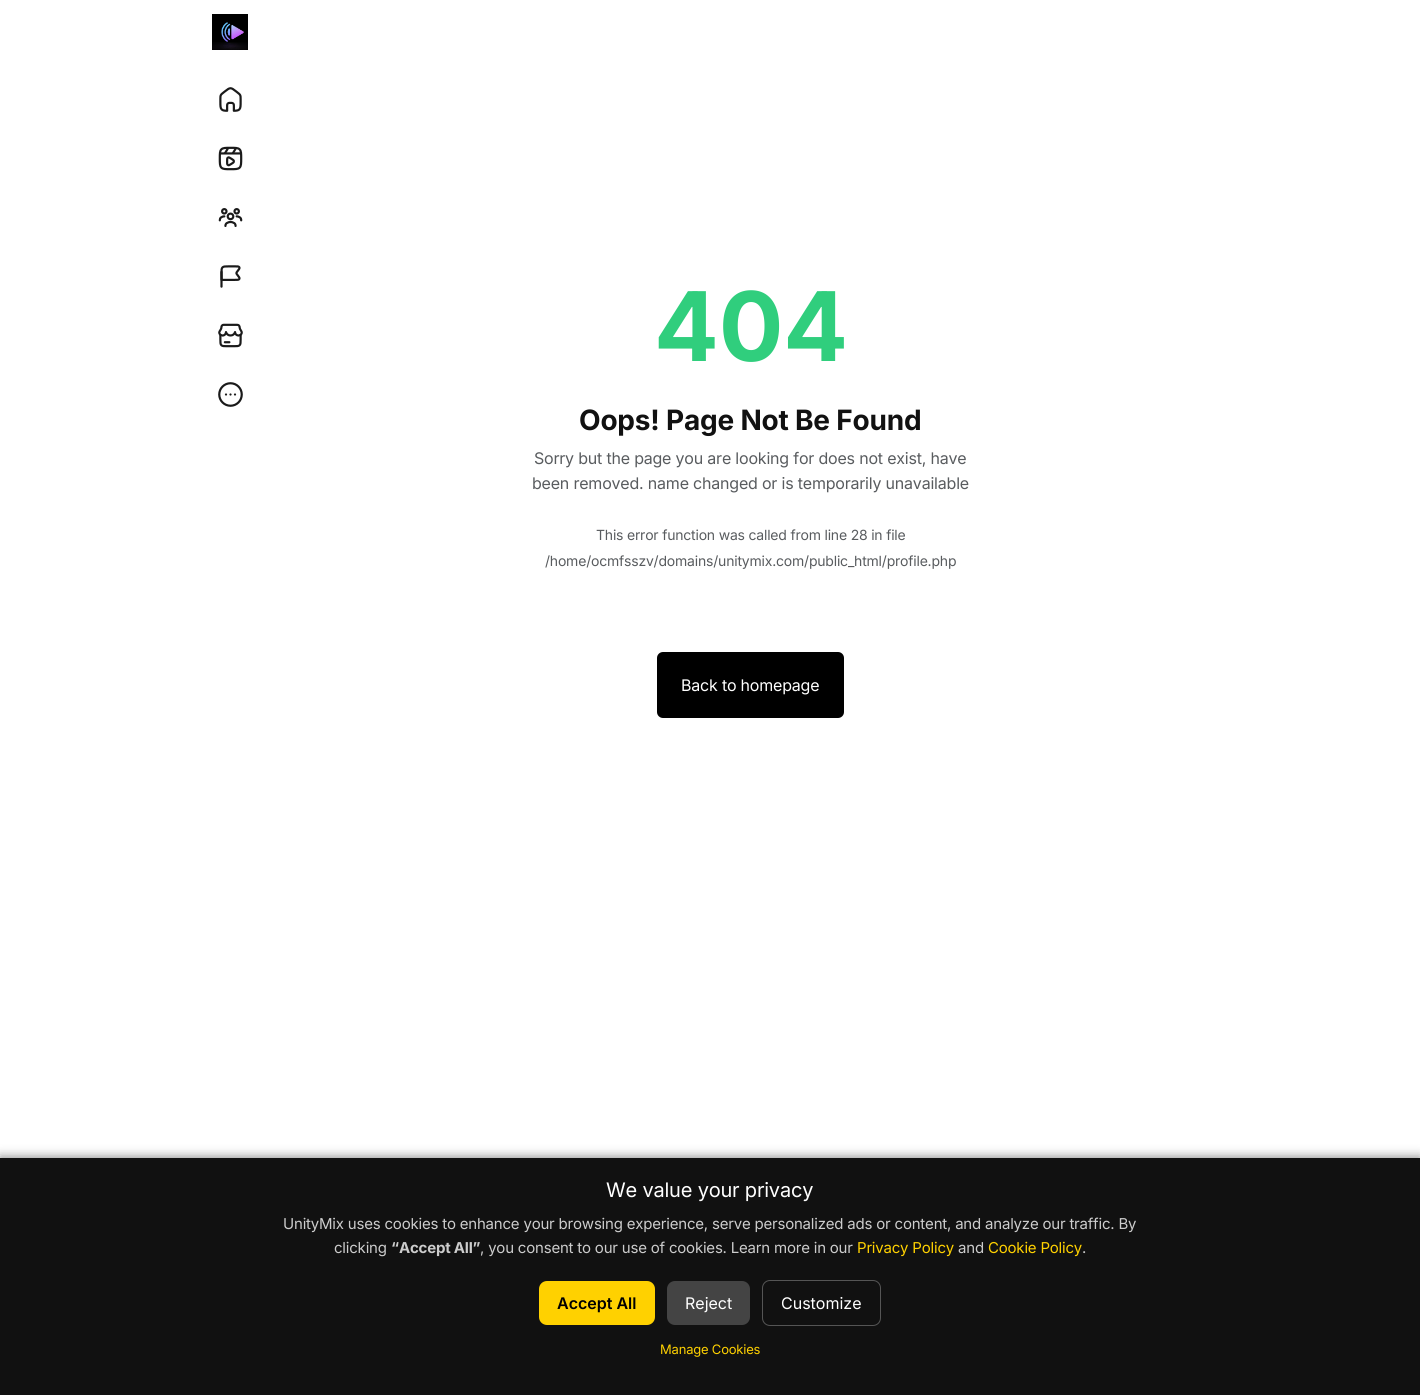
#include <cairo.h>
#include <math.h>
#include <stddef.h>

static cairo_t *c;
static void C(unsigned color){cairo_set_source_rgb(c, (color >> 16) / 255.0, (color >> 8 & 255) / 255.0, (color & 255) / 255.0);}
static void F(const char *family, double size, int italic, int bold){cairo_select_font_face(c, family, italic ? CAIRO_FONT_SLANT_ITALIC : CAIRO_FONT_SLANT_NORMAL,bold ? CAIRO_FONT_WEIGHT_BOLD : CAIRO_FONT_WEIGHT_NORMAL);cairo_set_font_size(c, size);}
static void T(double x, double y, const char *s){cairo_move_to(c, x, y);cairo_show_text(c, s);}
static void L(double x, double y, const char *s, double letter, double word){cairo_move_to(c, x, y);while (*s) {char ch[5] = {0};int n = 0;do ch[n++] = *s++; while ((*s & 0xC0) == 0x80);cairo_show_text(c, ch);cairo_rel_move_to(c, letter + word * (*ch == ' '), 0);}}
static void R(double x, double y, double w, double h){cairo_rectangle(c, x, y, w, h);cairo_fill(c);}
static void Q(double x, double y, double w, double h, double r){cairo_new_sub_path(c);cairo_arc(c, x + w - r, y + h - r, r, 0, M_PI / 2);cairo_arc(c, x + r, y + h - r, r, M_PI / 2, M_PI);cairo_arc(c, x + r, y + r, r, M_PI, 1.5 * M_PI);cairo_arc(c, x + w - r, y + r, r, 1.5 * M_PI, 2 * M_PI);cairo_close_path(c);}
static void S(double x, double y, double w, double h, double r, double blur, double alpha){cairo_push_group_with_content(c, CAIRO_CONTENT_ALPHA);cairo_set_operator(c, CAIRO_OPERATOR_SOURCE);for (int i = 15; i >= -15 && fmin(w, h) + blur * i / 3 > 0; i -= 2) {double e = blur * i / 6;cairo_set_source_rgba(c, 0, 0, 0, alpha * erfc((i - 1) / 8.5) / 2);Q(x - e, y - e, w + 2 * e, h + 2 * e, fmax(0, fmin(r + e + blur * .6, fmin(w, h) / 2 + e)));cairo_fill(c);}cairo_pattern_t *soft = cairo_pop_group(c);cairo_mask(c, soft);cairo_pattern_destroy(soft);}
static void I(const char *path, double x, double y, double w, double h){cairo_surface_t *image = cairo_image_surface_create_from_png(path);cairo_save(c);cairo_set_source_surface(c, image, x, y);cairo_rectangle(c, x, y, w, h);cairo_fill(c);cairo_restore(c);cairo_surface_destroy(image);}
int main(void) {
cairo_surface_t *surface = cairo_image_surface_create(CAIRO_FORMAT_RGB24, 1420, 1395);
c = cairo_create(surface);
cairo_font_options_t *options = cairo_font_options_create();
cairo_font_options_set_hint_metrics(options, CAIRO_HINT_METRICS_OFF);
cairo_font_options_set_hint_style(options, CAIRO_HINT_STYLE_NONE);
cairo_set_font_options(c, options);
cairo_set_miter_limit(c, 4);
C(0xffffff);
cairo_paint(c);
I("1.png",212,14,36,36);
I("2.png",219,87,23,25);
I("3.png",218,146,25,25);
I("4.png",218,208,25,19);
I("5.png",220,265,21,23);
I("6.png",218,323,25,25);
I("7.png",218,382,25,25);
F("Inter",96,0,1);
C(0x30ce7d);
L(654,361,"404",-.2,0);
F("Inter",28,0,1);
C(0x111111);
L(579,430,"Oops! Page Not Be Found",-.2,0);
F("Inter",16,0,0);
C(0x595c5f);
L(534,464,"Sorry but the page you are looking for does not exist, have",-.2,0);
L(532,489,"been removed. name changed or is temporarily unavailable",-.2,0);
F("Inter",14,0,0);
L(596,540,"This error function was called from line 28 in file",-.2,0);
L(545,566,"/home/ocmfsszv/domains/unitymix.com/public_html/profile.php",-.2,0);
C(0x000000);
Q(657,652,187,66,6);
cairo_fill(c);
F("Inter",16,0,0);
C(0xffffff);
L(681,691,"Back to homepage",-.2,0);
C(0x000000);
S(0,1156,1420,237,0,5,.4);
C(0x111111);
R(0,1158,1420,237);
F("Inter",20,0,0);
C(0xffffff);
L(606,1197,"We value your privacy",-.2,0);
F("Inter",15,0,0);
C(0xcccccc);
L(283,1229,"UnityMix uses cookies to enhance your browsing experience, serve personalized ads or content, and analyze our traffic. By",-.2,0);
L(334,1253,"clicking",-.2,0);
F("Inter",15,0,1);
L(391,1253,"“Accept All”",-.2,0);
F("Inter",15,0,0);
L(480,1253,", you consent to our use of cookies. Learn more in our",-.2,0);
C(0xffd100);
L(857,1253,"Privacy Policy",-.2,0);
C(0xcccccc);
L(958,1253,"and",-.2,0);
C(0xffd100);
L(988,1253,"Cookie Policy",-.2,0);
C(0xcccccc);
L(1082,1253,".",-.2,0);
C(0xffd100);
Q(539,1281,116,44,8);
cairo_fill(c);
F("Inter SemiBold",16,0,0);
C(0x000000);
T(557,1309,"Accept All");
C(0x444444);
Q(667,1281,83,44,8);
cairo_fill(c);
F("Inter",16,0,0);
C(0xffffff);
T(685,1309,"Reject");
Q(762.5,1280.5,118,45,7.5);
C(0x555555);
cairo_set_line_width(c,1);
cairo_stroke(c);
C(0xffffff);
T(781,1309,"Customize");
F("Inter",13,0,0);
C(0xffd100);
L(660,1354,"Manage Cookies",-.2,0);
cairo_surface_write_to_png(surface, "o.png");
cairo_font_options_destroy(options);
cairo_destroy(c);
cairo_surface_destroy(surface);
return 0;
}
